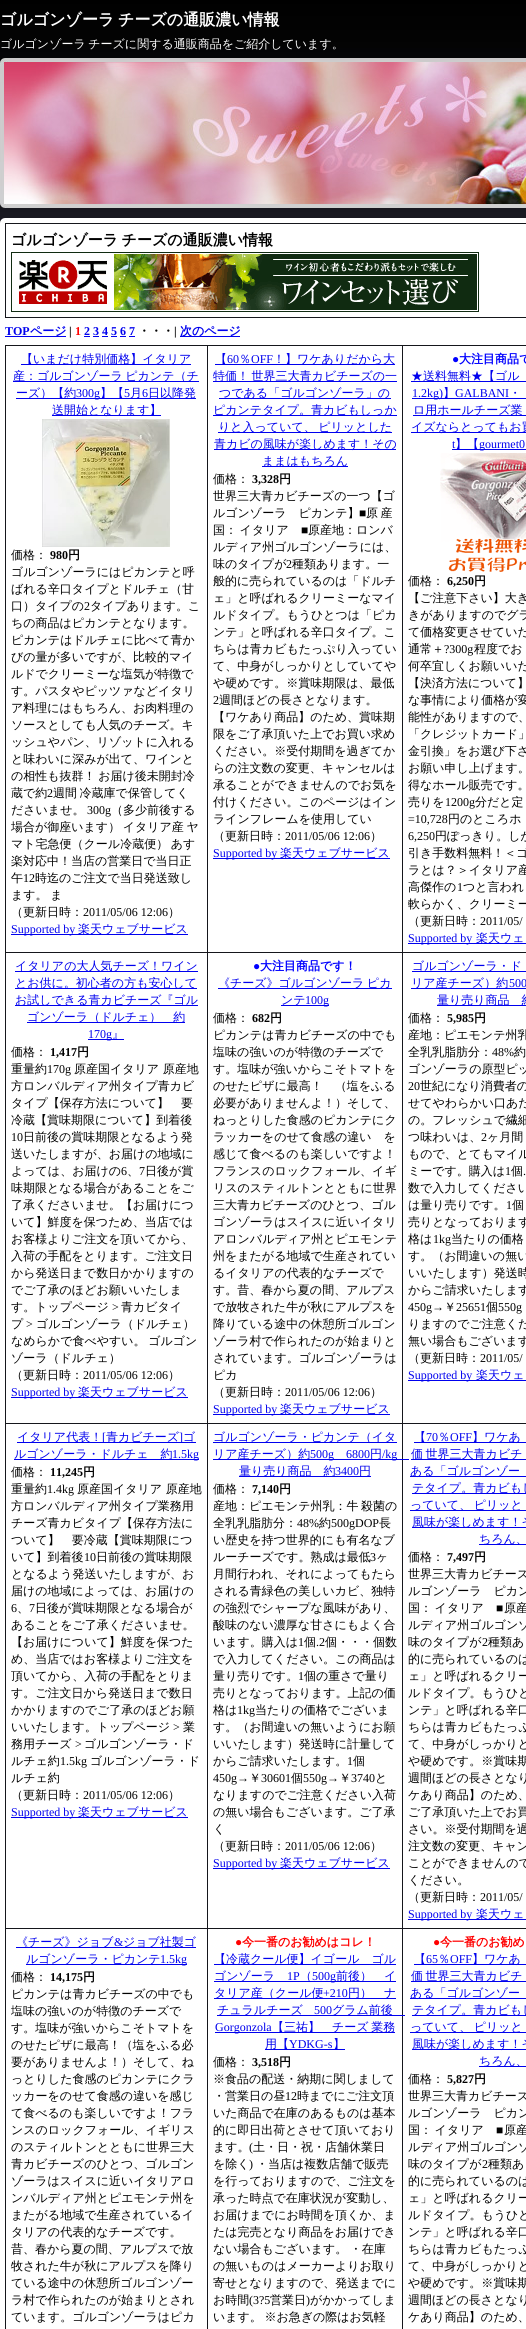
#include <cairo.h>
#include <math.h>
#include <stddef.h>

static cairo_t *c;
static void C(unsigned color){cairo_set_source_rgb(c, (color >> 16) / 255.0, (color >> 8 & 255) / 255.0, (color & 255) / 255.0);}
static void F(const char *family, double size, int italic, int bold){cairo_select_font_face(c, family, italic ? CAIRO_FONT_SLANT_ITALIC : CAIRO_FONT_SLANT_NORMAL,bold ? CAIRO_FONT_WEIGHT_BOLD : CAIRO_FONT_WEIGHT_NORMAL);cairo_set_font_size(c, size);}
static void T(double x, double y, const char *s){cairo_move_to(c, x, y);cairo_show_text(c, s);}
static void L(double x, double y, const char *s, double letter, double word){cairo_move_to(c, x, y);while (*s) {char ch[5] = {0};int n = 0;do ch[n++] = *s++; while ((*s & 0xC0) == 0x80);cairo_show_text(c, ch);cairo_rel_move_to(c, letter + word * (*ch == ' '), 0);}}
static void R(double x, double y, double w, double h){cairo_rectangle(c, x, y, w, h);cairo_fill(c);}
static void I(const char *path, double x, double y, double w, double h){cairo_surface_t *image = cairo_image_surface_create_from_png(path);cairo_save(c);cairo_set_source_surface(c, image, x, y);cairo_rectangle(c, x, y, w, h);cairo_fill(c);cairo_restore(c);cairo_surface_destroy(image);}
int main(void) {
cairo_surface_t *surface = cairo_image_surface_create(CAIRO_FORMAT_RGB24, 526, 2329);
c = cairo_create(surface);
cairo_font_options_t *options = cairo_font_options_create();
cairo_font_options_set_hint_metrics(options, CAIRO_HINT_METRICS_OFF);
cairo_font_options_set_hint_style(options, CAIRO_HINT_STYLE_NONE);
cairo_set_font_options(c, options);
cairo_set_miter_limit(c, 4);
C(0xffffff);
cairo_paint(c);
I("1.png",0,0,526,218);
F("WenQuanYi Zen Hei",16,0,1);
C(0xffffff);
L(0,25,"ゴルゴンゾーラ チーズの通販濃い情報",0,-1);
F("WenQuanYi Zen Hei Medium",12,0,0);
L(0,48,"ゴルゴンゾーラ チーズに関する通販商品をご紹介しています。",0,-1);
I("2.png",0,58,526,150);
I("3.png",4,62,522,142);
I("4.png",0,218,526,5);
cairo_rectangle(c,5.5,223.5,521,94);
C(0x15161b);
cairo_set_line_width(c,1);
cairo_stroke(c);
F("WenQuanYi Zen Hei",15,0,1);
C(0x000000);
L(11,245,"ゴルゴンゾーラ チーズの通販濃い情報",0,-1);
I("5.png",11,252,468,60);
F("Liberation Serif",12,0,1);
C(0x0000ee);
T(5,335,"TOP");
R(5,336,61,1);
F("WenQuanYi Zen Hei",12,0,1);
T(30,335,"ページ");
F("Liberation Serif",12,0,1);
C(0x000000);
T(69,335,"|");
C(0xff0000);
T(75,335,"1");
C(0x0000ee);
T(84,335,"2 3 4 5 6 7");
R(84,336,6,1);
F("WenQuanYi Zen Hei",12,0,1);
C(0x000000);
T(138,335,"・・・");
F("Liberation Serif",12,0,1);
T(174,335,"|");
C(0x0000ee);
R(180,336,60,1);
F("WenQuanYi Zen Hei",12,0,1);
T(180,335,"次のページ");
R(93,336,6,1);
R(102,336,6,1);
R(111,336,6,1);
R(120,336,6,1);
R(129,336,6,1);
C(0x15161b);
R(5,345,521,1);
R(5,345,1,1984);
C(0x0000ee);
R(21,364,170,1);
F("WenQuanYi Zen Hei Medium",12,0,0);
T(21,363,"【いまだけ特別価格】イタリア");
R(13,381,186,1);
L(13,380,"産：ゴルゴンゾーラ ピカンテ（チ",0,-1);
R(16,398,180,1);
T(16,397,"ーズ）【約");
F("Liberation Serif",12,0,0);
T(76,397,"300g");
F("WenQuanYi Zen Hei Medium",12,0,0);
T(100,397,"】【");
F("Liberation Serif",12,0,0);
T(124,397,"5");
F("WenQuanYi Zen Hei Medium",12,0,0);
T(130,397,"月");
F("Liberation Serif",12,0,0);
T(142,397,"6");
F("WenQuanYi Zen Hei Medium",12,0,0);
T(148,397,"日以降発");
R(52,415,109,1);
T(52,414,"送開始となります】");
I("6.png",42,419,128,128);
C(0x000000);
T(11,559,"価格：");
F("Liberation Serif",12,0,1);
T(50,559,"980");
F("WenQuanYi Zen Hei",12,0,1);
T(68,559,"円");
F("WenQuanYi Zen Hei Medium",12,0,0);
T(11,576,"ゴルゴンゾーラにはピカンテと呼");
T(11,593,"ばれる辛口タイプとドルチェ（甘");
T(11,610,"口）タイプの");
F("Liberation Serif",12,0,0);
T(84,610,"2");
F("WenQuanYi Zen Hei Medium",12,0,0);
T(90,610,"タイプあります。こ");
T(11,627,"ちの商品はピカンテとなります。");
T(11,644,"ピカンテはドルチェに比べて青か");
T(11,661,"びの量が多いですが、比較的マイ");
T(11,678,"ルドでクリーミーな塩気が特徴で");
T(11,695,"す。パスタやピッツァなどイタリ");
T(11,712,"ア料理にはもちろん、お肉料理の");
T(11,729,"ソースとしても人気のチーズ。キ");
T(11,746,"ッシュやパン、リゾットに入れる");
T(11,763,"と味わいに深みが出て、ワインと");
L(11,780,"の相性も抜群！ お届け後未開封冷",0,-1);
T(11,797,"蔵で約");
F("Liberation Serif",12,0,0);
T(47,797,"2");
F("WenQuanYi Zen Hei Medium",12,0,0);
L(53,797,"週間 冷蔵庫で保管してく",0,-1);
T(11,814,"ださいませ。");
F("Liberation Serif",12,0,0);
T(87,814,"300g");
F("WenQuanYi Zen Hei Medium",12,0,0);
T(111,814,"（多少前後する");
L(11,831,"場合が御座います） イタリア産 ヤ",0,-1);
L(11,848,"マト宅急便（クール冷蔵便） あす",0,-1);
T(11,865,"楽対応中！当店の営業日で当日正");
T(11,882,"午");
F("Liberation Serif",12,0,0);
T(23,882,"12");
F("WenQuanYi Zen Hei Medium",12,0,0);
T(35,882,"時迄のご注文で当日発送致し");
L(11,899,"ます。 ま",0,-1);
T(11,916,"（更新日時：");
F("Liberation Serif",12,0,0);
T(83,916,"2011/05/06 12:06");
F("WenQuanYi Zen Hei Medium",12,0,0);
T(168,916,"）");
C(0x0000ee);
R(11,934,177,1);
F("Liberation Serif",12,0,0);
T(11,933,"Supported by");
F("WenQuanYi Zen Hei Medium",12,0,0);
T(78,933,"楽天ウェブサービス");
C(0x15161b);
R(402,952,124,1);
R(402,1423,124,1);
R(402,1928,124,1);
R(402,1928,1,401);
R(207,1928,196,1);
R(402,1423,1,506);
R(207,1423,196,1);
R(402,952,1,472);
R(207,952,196,1);
R(207,1928,1,401);
R(5,1928,203,1);
R(207,1423,1,506);
R(5,1423,203,1);
R(207,952,1,472);
R(5,952,203,1);
R(207,345,1,608);
C(0x0000ee);
R(215,364,180,1);
T(215,363,"【");
F("Liberation Serif",12,0,0);
T(227,363,"60");
F("WenQuanYi Zen Hei Medium",12,0,0);
T(239,363,"％");
F("Liberation Serif",12,0,0);
T(251,363,"OFF");
F("WenQuanYi Zen Hei Medium",12,0,0);
T(273,363,"！】ワケありだから大");
R(213,381,184,1);
L(213,380,"特価！ 世界三大青カビチーズの一",0,-1);
R(219,398,172,1);
T(219,397,"つである「ゴルゴンゾーラ」の");
R(213,415,184,1);
T(213,414,"ピカンテタイプ。青カビもしっか");
R(218,432,174,1);
L(218,431,"りと入っていて、 ピリッとした",0,-1);
R(214,449,182,1);
T(214,448,"青カビの風味が楽しめます！その");
R(262,466,86,1);
T(262,465,"ままはもちろん");
C(0x000000);
T(213,483,"価格：");
F("Liberation Serif",12,0,1);
T(252,483,"3,328");
F("WenQuanYi Zen Hei",12,0,1);
T(279,483,"円");
F("WenQuanYi Zen Hei Medium",12,0,0);
T(213,500,"世界三大青カビチーズの一つ【ゴ");
T(213,517,"ルゴンゾーラ　ピカンテ】");
F("Liberation Serif",12,0,0);
T(359,517,"■");
F("WenQuanYi Zen Hei Medium",12,0,0);
L(366,517,"原 産",0,-1);
L(213,534,"国： イタリア",0,-1);
F("Liberation Serif",12,0,0);
T(301,534,"■");
F("WenQuanYi Zen Hei Medium",12,0,0);
T(308,534,"原産地：ロンバ");
T(213,551,"ルディア州ゴルゴンゾーラには、");
T(213,568,"味のタイプが");
F("Liberation Serif",12,0,0);
T(286,568,"2");
F("WenQuanYi Zen Hei Medium",12,0,0);
T(292,568,"種類あります。一");
T(213,585,"般的に売られているのは「ドルチ");
T(213,602,"ェ」と呼ばれるクリーミーなマイ");
T(213,619,"ルドタイプ。もうひとつは「ピカ");
T(213,636,"ンテ」と呼ばれる辛口タイプ。こ");
T(213,653,"ちらは青カビもたっぷり入ってい");
T(213,670,"て、中身がしっかりとしていてや");
T(213,687,"や硬めです。※賞味期限は、最低");
F("Liberation Serif",12,0,0);
T(213,704,"2");
F("WenQuanYi Zen Hei Medium",12,0,0);
T(219,704,"週間ほどの長さとなります。");
T(213,721,"【ワケあり商品】のため、賞味期");
T(213,738,"限をご了承頂いた上でお買い求め");
T(213,755,"ください。※受付期間を過ぎてか");
T(213,772,"らの注文数の変更、キャンセルは");
T(213,789,"承ることができませんのでお気を");
T(213,806,"付けください。このページはイン");
T(213,823,"ラインフレームを使用してい");
T(213,840,"（更新日時：");
F("Liberation Serif",12,0,0);
T(285,840,"2011/05/06 12:06");
F("WenQuanYi Zen Hei Medium",12,0,0);
T(370,840,"）");
C(0x0000ee);
R(213,858,177,1);
F("Liberation Serif",12,0,0);
T(213,857,"Supported by");
F("WenQuanYi Zen Hei Medium",12,0,0);
T(280,857,"楽天ウェブサービス");
C(0x15161b);
R(402,345,1,608);
F("Liberation Serif",12,0,1);
C(0x0000ff);
T(452,363,"●");
F("WenQuanYi Zen Hei",12,0,1);
T(459,363,"大注目商品で");
C(0x0000ee);
R(411,381,115,1);
F("WenQuanYi Zen Hei Medium",12,0,0);
T(411,380,"★送料無料★【ゴル");
R(412,398,114,1);
F("Liberation Serif",12,0,0);
T(412,397,"1.2kg)");
F("WenQuanYi Zen Hei Medium",12,0,0);
T(443,397,"】");
F("Liberation Serif",12,0,0);
T(455,397,"GALBANI");
F("WenQuanYi Zen Hei Medium",12,0,0);
T(509,397,"・");
R(413,415,113,1);
T(413,414,"ロ用ホールチーズ業");
R(411,432,115,1);
T(411,431,"イズならとってもお買");
F("Liberation Serif",12,0,0);
T(452,448,"t");
R(452,449,74,1);
F("WenQuanYi Zen Hei Medium",12,0,0);
T(455,448,"】【");
F("Liberation Serif",12,0,0);
T(479,448,"gourmet0");
I("7.png",440,453,86,119);
F("WenQuanYi Zen Hei Medium",12,0,0);
C(0x000000);
T(408,585,"価格：");
F("Liberation Serif",12,0,1);
T(447,585,"6,250");
F("WenQuanYi Zen Hei",12,0,1);
T(474,585,"円");
F("WenQuanYi Zen Hei Medium",12,0,0);
T(408,602,"【ご注意下さい】大き");
T(408,619,"きがありますのでグラ");
T(408,636,"て価格変更させていた");
T(408,653,"通常＋");
F("Liberation Serif",12,0,0);
T(444,653,"?300g");
F("WenQuanYi Zen Hei Medium",12,0,0);
T(474,653,"程度でお");
T(408,670,"何卒宜しくお願いいた");
T(408,687,"【決済方法について】");
T(408,704,"な事情により価格が変");
T(408,721,"能性がありますので、");
T(408,738,"「クレジットカード」");
T(408,755,"金引換」をお選び下さ");
T(408,772,"お願い申し上げます。");
T(408,789,"得なホール販売です。");
T(408,806,"売りを");
F("Liberation Serif",12,0,0);
T(445,806,"1200g");
F("WenQuanYi Zen Hei Medium",12,0,0);
T(475,806,"分だと定");
F("Liberation Serif",12,0,0);
T(408,823,"=10,728");
F("WenQuanYi Zen Hei Medium",12,0,0);
T(448,823,"円のところホ");
F("Liberation Serif",12,0,0);
T(408,840,"6,250");
F("WenQuanYi Zen Hei Medium",12,0,0);
T(435,840,"円ぽっきり。しか");
T(408,857,"引き手数料無料！＜ゴ");
T(408,874,"ラとは？＞イタリア産");
T(408,891,"高傑作の");
F("Liberation Serif",12,0,0);
T(457,891,"1");
F("WenQuanYi Zen Hei Medium",12,0,0);
T(463,891,"つと言われ");
T(408,908,"軟らかく、クリーミー");
T(408,925,"（更新日時：");
F("Liberation Serif",12,0,0);
T(480,925,"2011/05/");
C(0x0000ee);
R(408,943,118,1);
T(408,942,"Supported by");
F("WenQuanYi Zen Hei Medium",12,0,0);
T(476,942,"楽天ウェ");
R(15,971,183,1);
T(15,970,"イタリアの大人気チーズ！ワイン");
R(15,988,182,1);
T(15,987,"とお供に。初心者の方も安心して");
R(15,1005,183,1);
T(15,1004,"お試しできる青カビチーズ『ゴル");
R(27,1022,158,1);
T(27,1021,"ゴンゾーラ（ドルチェ）　約");
R(88,1039,36,1);
F("Liberation Serif",12,0,0);
T(88,1038,"170g");
F("WenQuanYi Zen Hei Medium",12,0,0);
T(112,1038,"』");
C(0x000000);
T(11,1056,"価格：");
F("Liberation Serif",12,0,1);
T(50,1056,"1,417");
F("WenQuanYi Zen Hei",12,0,1);
T(77,1056,"円");
F("WenQuanYi Zen Hei Medium",12,0,0);
T(11,1073,"重量約");
F("Liberation Serif",12,0,0);
T(47,1073,"170g");
F("WenQuanYi Zen Hei Medium",12,0,0);
T(74,1073,"原産国イタリア 原産地");
T(11,1090,"方ロンバルディア州タイプ青カビ");
T(11,1107,"タイプ【保存方法について】　要");
T(11,1124,"冷蔵【賞味期限について】到着後");
F("Liberation Serif",12,0,0);
T(11,1141,"10");
F("WenQuanYi Zen Hei Medium",12,0,0);
T(23,1141,"日前後の賞味期限となるよう発");
T(11,1158,"送いたしますが、お届けの地域に");
T(11,1175,"よっては、お届けの");
F("Liberation Serif",12,0,0);
T(121,1175,"6");
T(139,1175,"7");
F("WenQuanYi Zen Hei Medium",12,0,0);
T(145,1175,"日後が賞");
T(127,1175,"、");
T(11,1192,"味期限となる場合があることをご");
T(11,1209,"了承くださいませ。【お届けにつ");
T(11,1226,"いて】鮮度を保つため、当店では");
T(11,1243,"お客様よりご注文を頂いてから、");
T(11,1260,"入荷の手配をとります。ご注文日");
T(11,1277,"から発送日まで数日かかりますの");
T(11,1294,"でご了承のほどお願いいたしま");
T(11,1311,"す。トップページ");
F("Liberation Serif",12,0,0);
T(112,1311,">");
F("WenQuanYi Zen Hei Medium",12,0,0);
T(121,1311,"青カビタイ");
T(11,1328,"プ");
F("Liberation Serif",12,0,0);
T(26,1328,">");
F("WenQuanYi Zen Hei Medium",12,0,0);
T(36,1328,"ゴルゴンゾーラ（ドルチェ）");
L(11,1345,"なめらかで食べやすい。 ゴルゴン",0,-1);
T(11,1362,"ゾーラ（ドルチェ）");
T(11,1379,"（更新日時：");
F("Liberation Serif",12,0,0);
T(83,1379,"2011/05/06 12:06");
F("WenQuanYi Zen Hei Medium",12,0,0);
T(168,1379,"）");
C(0x0000ee);
R(11,1397,177,1);
F("Liberation Serif",12,0,0);
T(11,1396,"Supported by");
F("WenQuanYi Zen Hei Medium",12,0,0);
T(78,1396,"楽天ウェブサービス");
F("Liberation Serif",12,0,1);
C(0x0000ff);
T(253,970,"●");
F("WenQuanYi Zen Hei",12,0,1);
T(260,970,"大注目商品です！");
C(0x0000ee);
R(218,988,174,1);
F("WenQuanYi Zen Hei Medium",12,0,0);
L(218,987,"《チーズ》ゴルゴンゾーラ ピカ",0,-1);
R(281,1005,48,1);
T(281,1004,"ンテ");
F("Liberation Serif",12,0,0);
T(305,1004,"100g");
F("WenQuanYi Zen Hei Medium",12,0,0);
C(0x000000);
T(213,1022,"価格：");
F("Liberation Serif",12,0,1);
T(252,1022,"682");
F("WenQuanYi Zen Hei",12,0,1);
T(270,1022,"円");
F("WenQuanYi Zen Hei Medium",12,0,0);
T(213,1039,"ピカンテは青カビチーズの中でも");
T(213,1056,"塩味の強いのが特徴のチーズで");
T(213,1073,"す。塩味が強いからこそトマトを");
T(213,1090,"のせたピザに最高！　（塩をふる");
T(213,1107,"必要がありませんよ！）そして、");
T(213,1124,"ねっとりした食感のピカンテにク");
T(213,1141,"ラッカーをのせて食感の違い　を");
T(213,1158,"感じて食べるのも楽しいですよ！");
T(213,1175,"フランスのロックフォール、イギ");
T(213,1192,"リスのスティルトンとともに世界");
T(213,1209,"三大青カビチーズのひとつ、ゴル");
T(213,1226,"ゴンゾーラはスイスに近いイタリ");
T(213,1243,"アロンバルディア州とピエモンテ");
T(213,1260,"州をまたがる地域で生産されてい");
T(213,1277,"るイタリアの代表的なチーズで");
T(213,1294,"す。昔、春から夏の間、アルプス");
T(213,1311,"で放牧された牛が秋にアルプスを");
T(213,1328,"降りている途中の休憩所ゴルゴン");
T(213,1345,"ゾーラ村で作られたのが始まりと");
T(213,1362,"されています。ゴルゴンゾーラは");
T(213,1379,"ピカ");
T(213,1396,"（更新日時：");
F("Liberation Serif",12,0,0);
T(285,1396,"2011/05/06 12:06");
F("WenQuanYi Zen Hei Medium",12,0,0);
T(370,1396,"）");
C(0x0000ee);
R(213,1414,177,1);
F("Liberation Serif",12,0,0);
T(213,1413,"Supported by");
F("WenQuanYi Zen Hei Medium",12,0,0);
T(280,1413,"楽天ウェブサービス");
R(412,971,114,1);
T(412,970,"ゴルゴンゾーラ・ド");
R(411,988,115,1);
T(411,987,"リア産チーズ）約");
F("Liberation Serif",12,0,0);
T(509,987,"500");
R(437,1005,89,1);
F("WenQuanYi Zen Hei Medium",12,0,0);
T(437,1004,"量り売り商品　約");
C(0x000000);
T(408,1022,"価格：");
F("Liberation Serif",12,0,1);
T(447,1022,"5,985");
F("WenQuanYi Zen Hei",12,0,1);
T(474,1022,"円");
F("WenQuanYi Zen Hei Medium",12,0,0);
L(408,1039,"産地：ピエモンテ州乳",0,-1);
T(408,1056,"全乳乳脂肪分：");
F("Liberation Serif",12,0,0);
T(492,1056,"48%");
F("WenQuanYi Zen Hei Medium",12,0,0);
T(514,1056,"約");
T(408,1073,"ゴンゾーラの原型ピッ");
F("Liberation Serif",12,0,0);
T(408,1090,"20");
F("WenQuanYi Zen Hei Medium",12,0,0);
T(420,1090,"世紀になり消費者の");
T(408,1107,"せてやわらかい口あた");
T(408,1124,"の。フレッシュで繊細");
T(408,1141,"つ味わいは、");
F("Liberation Serif",12,0,0);
T(481,1141,"2");
F("WenQuanYi Zen Hei Medium",12,0,0);
T(487,1141,"ヶ月間");
T(408,1158,"もので、とてもマイル");
T(408,1175,"ミーです。購入は");
F("Liberation Serif",12,0,0);
T(505,1175,"1");
F("WenQuanYi Zen Hei Medium",12,0,0);
T(511,1175,"個");
F("Liberation Serif",12,0,0);
T(523,1175,".");
F("WenQuanYi Zen Hei Medium",12,0,0);
T(408,1192,"数で入力してください");
T(408,1209,"は量り売りです。");
F("Liberation Serif",12,0,0);
T(506,1209,"1");
F("WenQuanYi Zen Hei Medium",12,0,0);
T(512,1209,"個");
T(408,1226,"売りとなっております");
T(408,1243,"格は");
F("Liberation Serif",12,0,0);
T(433,1243,"1kg");
F("WenQuanYi Zen Hei Medium",12,0,0);
T(451,1243,"当たりの価格");
T(408,1260,"す。（お間違いの無い");
T(408,1277,"いいたします）発送時");
T(408,1294,"からご請求いたします");
F("Liberation Serif",12,0,0);
T(408,1311,"450g→");
F("WenQuanYi Zen Hei Medium",12,0,0);
T(444,1311,"￥");
F("Liberation Serif",12,0,0);
T(456,1311,"25651");
F("WenQuanYi Zen Hei Medium",12,0,0);
T(486,1311,"個");
F("Liberation Serif",12,0,0);
T(498,1311,"550g");
F("WenQuanYi Zen Hei Medium",12,0,0);
T(408,1328,"りますのでご注意くだ");
T(408,1345,"無い場合もございます");
T(408,1362,"（更新日時：");
F("Liberation Serif",12,0,0);
T(480,1362,"2011/05/");
C(0x0000ee);
R(408,1380,118,1);
T(408,1379,"Supported by");
F("WenQuanYi Zen Hei Medium",12,0,0);
T(476,1379,"楽天ウェ");
R(17,1442,179,1);
T(17,1441,"イタリア代表！");
F("Liberation Serif",12,0,0);
T(102,1441,"[");
F("WenQuanYi Zen Hei Medium",12,0,0);
T(106,1441,"青カビチーズ");
F("Liberation Serif",12,0,0);
T(179,1441,"]");
F("WenQuanYi Zen Hei Medium",12,0,0);
T(183,1441,"ゴ");
R(14,1459,185,1);
T(14,1458,"ルゴンゾーラ・ドルチェ　約");
F("Liberation Serif",12,0,0);
T(172,1458,"1.5kg");
F("WenQuanYi Zen Hei Medium",12,0,0);
C(0x000000);
T(11,1476,"価格：");
F("Liberation Serif",12,0,1);
T(50,1476,"11,245");
F("WenQuanYi Zen Hei",12,0,1);
T(83,1476,"円");
F("WenQuanYi Zen Hei Medium",12,0,0);
T(11,1493,"重量約");
F("Liberation Serif",12,0,0);
T(47,1493,"1.4kg");
F("WenQuanYi Zen Hei Medium",12,0,0);
T(77,1493,"原産国イタリア 原産地");
T(11,1510,"方ロンバルディア州タイプ業務用");
T(11,1527,"チーズ青カビタイプ【保存方法に");
T(11,1544,"ついて】　要冷蔵【賞味期限につ");
T(11,1561,"いて】到着後");
F("Liberation Serif",12,0,0);
T(84,1561,"10");
F("WenQuanYi Zen Hei Medium",12,0,0);
T(96,1561,"日前後の賞味期限");
T(11,1578,"となるよう発送いたしますが、お");
T(11,1595,"届けの地域によっては、お届けの");
F("Liberation Serif",12,0,0);
T(11,1612,"6");
T(29,1612,"7");
F("WenQuanYi Zen Hei Medium",12,0,0);
T(35,1612,"日後が賞味期限となる場合が");
T(17,1612,"、");
T(11,1629,"あることをご了承くださいませ。");
T(11,1646,"【お届けについて】鮮度を保つた");
T(11,1663,"め、当店ではお客様よりご注文を");
T(11,1680,"頂いてから、入荷の手配をとりま");
T(11,1697,"す。ご注文日から発送日まで数日");
T(11,1714,"かかりますのでご了承のほどお願");
T(11,1731,"いいたします。トップページ");
F("Liberation Serif",12,0,0);
T(173,1731,">");
F("WenQuanYi Zen Hei Medium",12,0,0);
T(183,1731,"業");
T(11,1748,"務用チーズ");
F("Liberation Serif",12,0,0);
T(75,1748,">");
F("WenQuanYi Zen Hei Medium",12,0,0);
T(84,1748,"ゴルゴンゾーラ・ド");
T(11,1765,"ルチェ約");
F("Liberation Serif",12,0,0);
T(60,1765,"1.5kg");
F("WenQuanYi Zen Hei Medium",12,0,0);
T(90,1765,"ゴルゴンゾーラ・ド");
T(11,1782,"ルチェ約");
T(11,1799,"（更新日時：");
F("Liberation Serif",12,0,0);
T(83,1799,"2011/05/06 12:06");
F("WenQuanYi Zen Hei Medium",12,0,0);
T(168,1799,"）");
C(0x0000ee);
R(11,1817,177,1);
F("Liberation Serif",12,0,0);
T(11,1816,"Supported by");
F("WenQuanYi Zen Hei Medium",12,0,0);
T(78,1816,"楽天ウェブサービス");
R(213,1442,184,1);
T(213,1441,"ゴルゴンゾーラ・ピカンテ（イタ");
R(213,1459,196,1);
T(213,1458,"リア産チーズ）約");
F("Liberation Serif",12,0,0);
T(310,1458,"500g");
T(346,1458,"6800");
F("WenQuanYi Zen Hei Medium",12,0,0);
T(370,1458,"円");
F("Liberation Serif",12,0,0);
T(382,1458,"/kg");
R(239,1476,132,1);
F("WenQuanYi Zen Hei Medium",12,0,0);
T(239,1475,"量り売り商品　約");
F("Liberation Serif",12,0,0);
T(335,1475,"3400");
F("WenQuanYi Zen Hei Medium",12,0,0);
T(359,1475,"円");
C(0x000000);
T(213,1493,"価格：");
F("Liberation Serif",12,0,1);
T(252,1493,"7,140");
F("WenQuanYi Zen Hei",12,0,1);
T(279,1493,"円");
F("WenQuanYi Zen Hei Medium",12,0,0);
L(213,1510,"産地：ピエモンテ州乳：牛 殺菌の",0,-1);
T(213,1527,"全乳乳脂肪分：");
F("Liberation Serif",12,0,0);
T(297,1527,"48%");
F("WenQuanYi Zen Hei Medium",12,0,0);
T(319,1527,"約");
F("Liberation Serif",12,0,0);
T(331,1527,"500gDOP");
F("WenQuanYi Zen Hei Medium",12,0,0);
T(379,1527,"長");
T(213,1544,"い歴史を持つ世界的にも有名なブ");
T(213,1561,"ルーチーズです。熟成は最低");
F("Liberation Serif",12,0,0);
T(370,1561,"3");
F("WenQuanYi Zen Hei Medium",12,0,0);
T(376,1561,"ヶ");
T(213,1578,"月間行われ、それによってもたら");
T(213,1595,"される青緑色の美しいカビ、独特");
T(213,1612,"の強烈でシャープな風味があり、");
T(213,1629,"酸味のない濃厚な甘さにもよく合");
T(213,1646,"います。購入は");
F("Liberation Serif",12,0,0);
T(298,1646,"1");
F("WenQuanYi Zen Hei Medium",12,0,0);
T(304,1646,"個");
F("Liberation Serif",12,0,0);
T(316,1646,".2");
F("WenQuanYi Zen Hei Medium",12,0,0);
T(325,1646,"個・・・個数");
T(213,1663,"で入力してください。この商品は");
T(213,1680,"量り売りです。");
F("Liberation Serif",12,0,0);
T(298,1680,"1");
F("WenQuanYi Zen Hei Medium",12,0,0);
T(304,1680,"個の重さで量り");
T(213,1697,"売りとなっております。上記の価");
T(213,1714,"格は");
F("Liberation Serif",12,0,0);
T(237,1714,"1kg");
F("WenQuanYi Zen Hei Medium",12,0,0);
T(255,1714,"当たりの価格でございま");
T(213,1731,"す。（お間違いの無いようにお願");
T(213,1748,"いいたします）発送時に計量して");
T(213,1765,"からご請求いたします。");
F("Liberation Serif",12,0,0);
T(347,1765,"1");
F("WenQuanYi Zen Hei Medium",12,0,0);
T(353,1765,"個");
F("Liberation Serif",12,0,0);
T(213,1782,"450g→");
F("WenQuanYi Zen Hei Medium",12,0,0);
T(249,1782,"￥");
F("Liberation Serif",12,0,0);
T(261,1782,"30601");
F("WenQuanYi Zen Hei Medium",12,0,0);
T(291,1782,"個");
F("Liberation Serif",12,0,0);
T(303,1782,"550g→");
F("WenQuanYi Zen Hei Medium",12,0,0);
T(339,1782,"￥");
F("Liberation Serif",12,0,0);
T(351,1782,"3740");
F("WenQuanYi Zen Hei Medium",12,0,0);
T(375,1782,"と");
T(213,1799,"なりますのでご注意ください入荷");
T(213,1816,"の無い場合もございます。ご了承");
T(213,1833,"く");
T(213,1850,"（更新日時：");
F("Liberation Serif",12,0,0);
T(285,1850,"2011/05/06 12:06");
F("WenQuanYi Zen Hei Medium",12,0,0);
T(370,1850,"）");
C(0x0000ee);
R(213,1868,177,1);
F("Liberation Serif",12,0,0);
T(213,1867,"Supported by");
F("WenQuanYi Zen Hei Medium",12,0,0);
T(280,1867,"楽天ウェブサービス");
R(414,1442,112,1);
T(414,1441,"【");
F("Liberation Serif",12,0,0);
T(426,1441,"70");
F("WenQuanYi Zen Hei Medium",12,0,0);
T(438,1441,"％");
F("Liberation Serif",12,0,0);
T(450,1441,"OFF");
F("WenQuanYi Zen Hei Medium",12,0,0);
T(472,1441,"】ワケあ");
R(411,1459,115,1);
L(411,1458,"価 世界三大青カビチ",0,-1);
R(410,1476,116,1);
L(410,1475,"ある「ゴルゴンゾー",0,-1);
R(412,1493,114,1);
T(412,1492,"テタイプ。青カビもし");
R(410,1510,116,1);
L(410,1509,"っていて、 ピリッと",0,-1);
R(412,1527,114,1);
T(412,1526,"風味が楽しめます！そ");
R(479,1544,47,1);
T(479,1543,"ちろん、");
C(0x000000);
T(408,1561,"価格：");
F("Liberation Serif",12,0,1);
T(447,1561,"7,497");
F("WenQuanYi Zen Hei",12,0,1);
T(474,1561,"円");
F("WenQuanYi Zen Hei Medium",12,0,0);
T(408,1578,"世界三大青カビチーズ");
T(408,1595,"ルゴンゾーラ　ピカン");
L(408,1612,"国： イタリア",0,-1);
F("Liberation Serif",12,0,0);
T(496,1612,"■");
F("WenQuanYi Zen Hei Medium",12,0,0);
T(504,1612,"原産");
T(408,1629,"ルディア州ゴルゴンゾ");
T(408,1646,"味のタイプが");
F("Liberation Serif",12,0,0);
T(482,1646,"2");
F("WenQuanYi Zen Hei Medium",12,0,0);
T(488,1646,"種類あ");
T(408,1663,"的に売られているのは");
T(408,1680,"ェ」と呼ばれるクリー");
T(408,1697,"ルドタイプ。もうひと");
T(408,1714,"ンテ」と呼ばれる辛口");
T(408,1731,"ちらは青カビもたっぷ");
T(408,1748,"て、中身がしっかりと");
T(408,1765,"や硬めです。※賞味期");
T(408,1782,"週間ほどの長さとなり");
T(408,1799,"ケあり商品】のため、");
T(408,1816,"ご了承頂いた上でお買");
T(408,1833,"さい。※受付期間を過");
T(408,1850,"注文数の変更、キャン");
T(408,1867,"ことができませんので");
T(408,1884,"ください。");
T(408,1901,"（更新日時：");
F("Liberation Serif",12,0,0);
T(480,1901,"2011/05/");
C(0x0000ee);
R(408,1919,118,1);
T(408,1918,"Supported by");
F("WenQuanYi Zen Hei Medium",12,0,0);
T(476,1918,"楽天ウェ");
R(16,1947,180,1);
T(16,1946,"《チーズ》ジョブ");
F("Liberation Serif",12,0,0);
T(114,1946,"&");
F("WenQuanYi Zen Hei Medium",12,0,0);
T(123,1946,"ジョブ社製ゴ");
R(26,1964,161,1);
T(26,1963,"ルゴンゾーラ・ピカンテ");
F("Liberation Serif",12,0,0);
T(160,1963,"1.5kg");
F("WenQuanYi Zen Hei Medium",12,0,0);
C(0x000000);
T(11,1981,"価格：");
F("Liberation Serif",12,0,1);
T(50,1981,"14,175");
F("WenQuanYi Zen Hei",12,0,1);
T(83,1981,"円");
F("WenQuanYi Zen Hei Medium",12,0,0);
T(11,1998,"ピカンテは青カビチーズの中でも");
T(11,2015,"塩味の強いのが特徴のチーズで");
T(11,2032,"す。塩味が強いからこそトマトを");
T(11,2049,"のせたピザに最高！（塩をふる必");
T(11,2066,"要がありませんよ！）そして、ね");
T(11,2083,"っとりした食感のピカンテにクラ");
T(11,2100,"ッカーをのせて食感の違いを感じ");
T(11,2117,"て食べるのも楽しいですよ！フラ");
T(11,2134,"ンスのロックフォール、イギリス");
T(11,2151,"のスティルトンとともに世界三大");
T(11,2168,"青カビチーズのひとつ、ゴルゴン");
T(11,2185,"ゾーラはスイスに近いイタリアロ");
T(11,2202,"ンバルディア州とピエモンテ州を");
T(11,2219,"またがる地域で生産されているイ");
T(11,2236,"タリアの代表的なチーズです。");
T(11,2253,"昔、春から夏の間、アルプスで放");
T(11,2270,"牧された牛が秋にアルプスを降り");
T(11,2287,"ている途中の休憩所ゴルゴンゾー");
T(11,2304,"ラ村で作られたのが始まりとされ");
T(11,2321,"ています。ゴルゴンゾーラはピカ");
F("Liberation Serif",12,0,1);
C(0xff0000);
T(235,1946,"●");
F("WenQuanYi Zen Hei",12,0,1);
T(242,1946,"今一番のお勧めはコレ！");
C(0x0000ee);
R(214,1964,182,1);
F("WenQuanYi Zen Hei Medium",12,0,0);
T(214,1963,"【冷蔵クール便】イゴール　ゴル");
R(214,1981,182,1);
T(214,1980,"ゴンゾーラ");
F("Liberation Serif",12,0,0);
T(287,1980,"1P");
F("WenQuanYi Zen Hei Medium",12,0,0);
T(300,1980,"（");
F("Liberation Serif",12,0,0);
T(312,1980,"500g");
F("WenQuanYi Zen Hei Medium",12,0,0);
T(336,1980,"前後）　イ");
R(214,1998,182,1);
T(214,1997,"タリア産（クール便");
F("Liberation Serif",12,0,0);
T(323,1997,"+210");
F("WenQuanYi Zen Hei Medium",12,0,0);
T(348,1997,"円）　ナ");
R(217,2015,188,1);
T(217,2014,"チュラルチーズ");
F("Liberation Serif",12,0,0);
T(314,2014,"500");
F("WenQuanYi Zen Hei Medium",12,0,0);
T(332,2014,"グラム前後");
R(215,2032,180,1);
F("Liberation Serif",12,0,0);
T(215,2031,"Gorgonzola");
F("WenQuanYi Zen Hei Medium",12,0,0);
L(272,2031,"【三祐】　チーズ 業務",0,-1);
R(265,2049,80,1);
T(265,2048,"用【");
F("Liberation Serif",12,0,0);
T(289,2048,"YDKG-s");
F("WenQuanYi Zen Hei Medium",12,0,0);
T(333,2048,"】");
C(0x000000);
T(213,2066,"価格：");
F("Liberation Serif",12,0,1);
T(252,2066,"3,518");
F("WenQuanYi Zen Hei",12,0,1);
T(279,2066,"円");
F("WenQuanYi Zen Hei Medium",12,0,0);
T(213,2083,"※食品の配送・納期に関しまして");
T(213,2100,"・営業日の昼");
F("Liberation Serif",12,0,0);
T(285,2100,"12");
F("WenQuanYi Zen Hei Medium",12,0,0);
T(297,2100,"時までにご注文頂");
T(213,2117,"いた商品で在庫のあるものは基本");
T(213,2134,"的に即日出荷とさせて頂いており");
T(213,2151,"ます。");
F("Liberation Serif",12,0,0);
T(249,2151,"(");
F("WenQuanYi Zen Hei Medium",12,0,0);
T(253,2151,"土・日・祝・店舗休業日");
T(213,2168,"を除く");
F("Liberation Serif",12,0,0);
T(249,2168,")");
F("WenQuanYi Zen Hei Medium",12,0,0);
T(256,2168,"・当店は複数店舗で販売");
T(213,2185,"を行っておりますので、ご注文を");
T(213,2202,"承った時点で在庫状況が変動し、");
T(213,2219,"お届けまでにお時間を頂くか、ま");
T(213,2236,"たは完売となり商品をお届けでき");
L(213,2253,"ない場合もございます。 ・在庫",0,-1);
T(213,2270,"の無いものはメーカーよりお取り");
T(213,2287,"寄せとなりますので、発送までに");
T(213,2304,"お時間");
F("Liberation Serif",12,0,0);
T(249,2304,"(3?5");
F("WenQuanYi Zen Hei Medium",12,0,0);
T(270,2304,"営業日");
F("Liberation Serif",12,0,0);
T(306,2304,")");
F("WenQuanYi Zen Hei Medium",12,0,0);
T(310,2304,"がかかってしま");
L(213,2321,"います。 ※お急ぎの際はお気軽",0,-1);
F("Liberation Serif",12,0,1);
C(0xff0000);
T(433,1946,"●");
F("WenQuanYi Zen Hei",12,0,1);
T(440,1946,"今一番のお勧め");
C(0x0000ee);
R(414,1964,112,1);
F("WenQuanYi Zen Hei Medium",12,0,0);
T(414,1963,"【");
F("Liberation Serif",12,0,0);
T(426,1963,"65");
F("WenQuanYi Zen Hei Medium",12,0,0);
T(438,1963,"％");
F("Liberation Serif",12,0,0);
T(450,1963,"OFF");
F("WenQuanYi Zen Hei Medium",12,0,0);
T(472,1963,"】ワケあ");
R(411,1981,115,1);
L(411,1980,"価 世界三大青カビチ",0,-1);
R(410,1998,116,1);
L(410,1997,"ある「ゴルゴンゾー",0,-1);
R(412,2015,114,1);
T(412,2014,"テタイプ。青カビもし");
R(410,2032,116,1);
L(410,2031,"っていて、 ピリッと",0,-1);
R(412,2049,114,1);
T(412,2048,"風味が楽しめます！そ");
R(479,2066,47,1);
T(479,2065,"ちろん、");
C(0x000000);
T(408,2083,"価格：");
F("Liberation Serif",12,0,1);
T(447,2083,"5,827");
F("WenQuanYi Zen Hei",12,0,1);
T(474,2083,"円");
F("WenQuanYi Zen Hei Medium",12,0,0);
T(408,2100,"世界三大青カビチーズ");
T(408,2117,"ルゴンゾーラ　ピカン");
L(408,2134,"国： イタリア",0,-1);
F("Liberation Serif",12,0,0);
T(496,2134,"■");
F("WenQuanYi Zen Hei Medium",12,0,0);
T(504,2134,"原産");
T(408,2151,"ルディア州ゴルゴンゾ");
T(408,2168,"味のタイプが");
F("Liberation Serif",12,0,0);
T(482,2168,"2");
F("WenQuanYi Zen Hei Medium",12,0,0);
T(488,2168,"種類あ");
T(408,2185,"的に売られているのは");
T(408,2202,"ェ」と呼ばれるクリー");
T(408,2219,"ルドタイプ。もうひと");
T(408,2236,"ンテ」と呼ばれる辛口");
T(408,2253,"ちらは青カビもたっぷ");
T(408,2270,"て、中身がしっかりと");
T(408,2287,"や硬めです。※賞味期");
T(408,2304,"週間ほどの長さとなり");
T(408,2321,"ケあり商品】のため、");
cairo_surface_write_to_png(surface, "o.png");
cairo_font_options_destroy(options);
cairo_destroy(c);
cairo_surface_destroy(surface);
return 0;
}
